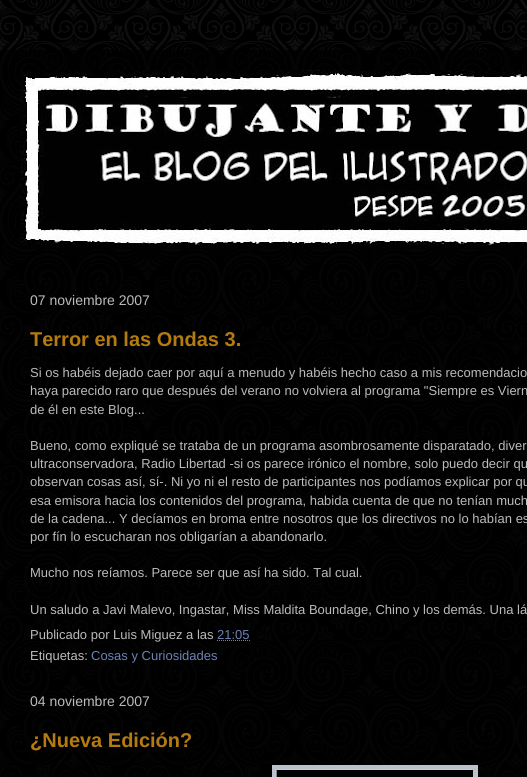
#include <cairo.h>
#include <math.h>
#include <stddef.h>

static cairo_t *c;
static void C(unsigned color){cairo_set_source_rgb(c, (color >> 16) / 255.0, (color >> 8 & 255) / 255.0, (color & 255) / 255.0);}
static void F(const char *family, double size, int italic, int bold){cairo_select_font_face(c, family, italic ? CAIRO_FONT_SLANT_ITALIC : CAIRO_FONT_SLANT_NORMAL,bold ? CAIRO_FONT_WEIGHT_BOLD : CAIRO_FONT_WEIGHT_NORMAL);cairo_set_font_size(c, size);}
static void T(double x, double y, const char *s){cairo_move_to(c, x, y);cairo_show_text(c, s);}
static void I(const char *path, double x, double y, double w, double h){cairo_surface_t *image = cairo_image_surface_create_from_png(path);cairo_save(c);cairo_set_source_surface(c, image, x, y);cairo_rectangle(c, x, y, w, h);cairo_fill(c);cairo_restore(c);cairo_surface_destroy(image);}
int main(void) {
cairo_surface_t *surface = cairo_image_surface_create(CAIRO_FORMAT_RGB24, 527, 777);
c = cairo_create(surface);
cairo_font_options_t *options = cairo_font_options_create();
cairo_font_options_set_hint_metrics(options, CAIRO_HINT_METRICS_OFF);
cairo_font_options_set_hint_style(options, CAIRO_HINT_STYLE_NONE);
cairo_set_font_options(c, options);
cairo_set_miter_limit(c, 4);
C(0xffffff);
cairo_paint(c);
I("1.png",0,0,527,777);
I("2.png",20,70,507,179);
F("Liberation Sans",14,0,0);
C(0xbbbbbb);
T(30,305,"07 noviembre 2007");
F("Liberation Sans",20,0,1);
C(0xb47b10);
T(30,346,"Terror en las Ondas 3.");
F("Liberation Sans",13,0,0);
C(0xbbbbbb);
T(30,377,"Si os habéis dejado caer por aquí a menudo y habéis hecho caso a mis recomendacio");
T(30,395,"haya parecido raro que después del verano no volviera al programa \"Siempre es Viern");
T(30,414,"de él en este Blog...");
T(30,450,"Bueno, como expliqué se trataba de un programa asombrosamente disparatado, diver");
T(30,468,"ultraconservadora, Radio Libertad -si os parece irónico el nombre, solo puedo decir qu");
T(30,486,"observan cosas así, sí-. Ni yo ni el resto de participantes nos podíamos explicar por qu");
T(30,505,"esa emisora hacia los contenidos del programa, habida cuenta de que no tenían much");
T(30,523,"de la cadena... Y decíamos en broma entre nosotros que los directivos no lo habían es");
T(30,541,"por fín lo escucharan nos obligarían a abandonarlo.");
T(30,577,"Mucho nos reíamos. Parece ser que así ha sido. Tal cual.");
T(30,614,"Un saludo a Javi Malevo, Ingastar, Miss Maldita Boundage, Chino y los demás. Una lá");
T(30,639,"Publicado por Luis Miguez a las");
C(0x6c82b5);
T(217,639,"21:05");
cairo_new_path(c);
cairo_move_to(c,217,640.5);
cairo_line_to(c,250,640.5);
cairo_set_line_width(c,1);
cairo_set_dash(c,(double[]){1,1},2,0);
cairo_stroke(c);
C(0xbbbbbb);
T(30,660,"Etiquetas:");
C(0x6c82b5);
T(91,660,"Cosas y Curiosidades");
F("Liberation Sans",14,0,0);
C(0xbbbbbb);
T(30,706,"04 noviembre 2007");
F("Liberation Sans",20,0,1);
C(0xb47b10);
T(30,747,"¿Nueva Edición?");
I("3.png",272,765,206,12);
cairo_surface_write_to_png(surface, "o.png");
cairo_font_options_destroy(options);
cairo_destroy(c);
cairo_surface_destroy(surface);
return 0;
}
